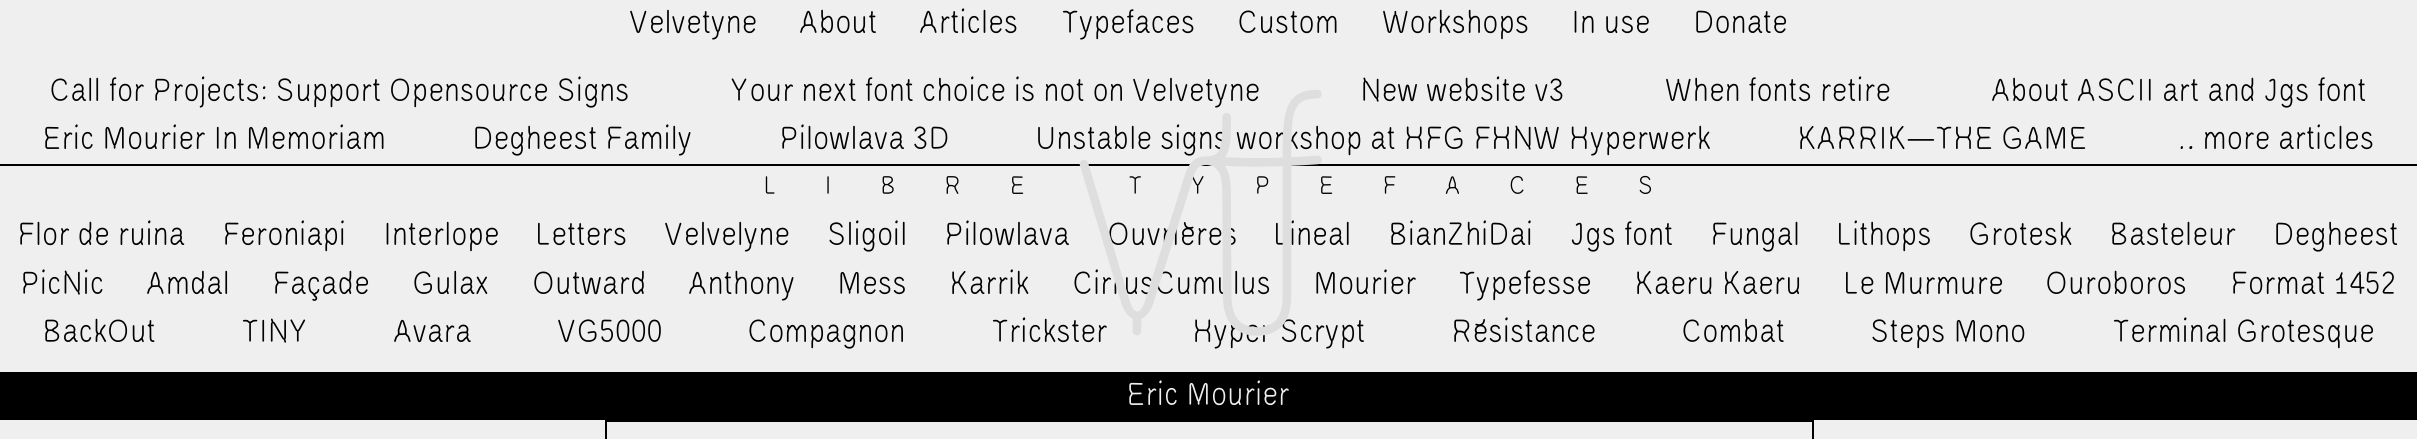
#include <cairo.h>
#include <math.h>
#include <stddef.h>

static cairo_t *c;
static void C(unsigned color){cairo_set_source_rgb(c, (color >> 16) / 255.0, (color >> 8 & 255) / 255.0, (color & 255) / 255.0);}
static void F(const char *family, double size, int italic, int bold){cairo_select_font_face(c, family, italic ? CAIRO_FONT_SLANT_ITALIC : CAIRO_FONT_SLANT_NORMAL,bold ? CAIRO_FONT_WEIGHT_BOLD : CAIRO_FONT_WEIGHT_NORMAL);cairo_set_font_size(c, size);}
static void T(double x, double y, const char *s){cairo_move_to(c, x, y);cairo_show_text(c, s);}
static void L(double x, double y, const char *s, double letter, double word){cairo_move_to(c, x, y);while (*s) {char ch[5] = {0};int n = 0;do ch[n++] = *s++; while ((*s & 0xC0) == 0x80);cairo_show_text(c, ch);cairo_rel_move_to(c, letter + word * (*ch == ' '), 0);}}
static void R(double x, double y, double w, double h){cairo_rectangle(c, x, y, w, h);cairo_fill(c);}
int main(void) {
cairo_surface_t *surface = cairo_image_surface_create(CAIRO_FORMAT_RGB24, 2417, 439);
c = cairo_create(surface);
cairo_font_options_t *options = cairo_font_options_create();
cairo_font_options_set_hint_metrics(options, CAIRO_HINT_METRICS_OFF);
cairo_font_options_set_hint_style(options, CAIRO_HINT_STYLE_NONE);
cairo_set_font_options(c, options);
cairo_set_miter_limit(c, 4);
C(0xefefef);
cairo_paint(c);
F("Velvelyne",34.5,0,0);
C(0x000000);
T(630,33,"Velvetyne");
T(800,33,"About");
T(920,33,"Articles");
T(1062,33,"Typefaces");
T(1238,33,"Custom");
T(1383,33,"Workshops");
T(1572,33,"In use");
T(1694,33,"Donate");
T(50,101,"Call for Projects: Support Opensource Signs");
T(731,101,"Your next font choice is not on Velvetyne");
T(1361,101,"New website v3");
T(1666,101,"When fonts retire");
T(1992,101,"About ASCII art and Jgs font");
T(43,149,"Eric Mourier In Memoriam");
T(473,149,"Degheest Family");
T(780,149,"Pilowlava 3D");
T(1036,149,"Unstable signs workshop at HFG FHNW Hyperwerk");
T(1798,149,"KARRIK—THE GAME");
T(2175,149,"…more articles");
R(0,164,2417,2);
F("Velvelyne",27.6,0,0);
L(765,194,"LIBRE TYPEFACES",48.4,0);
F("Velvelyne",34.5,0,0);
T(18,245,"Flor de ruina");
T(223,245,"Feroniapi");
T(384,245,"Interlope");
T(537,245,"Letters");
T(665,245,"Velvelyne");
T(828,245,"Sligoil");
T(945,245,"Pilowlava");
T(1108,245,"Ouvrières");
T(1275,245,"Lineal");
T(1389,245,"BianZhiDai");
T(1571,245,"Jgs font");
T(1711,245,"Fungal");
T(1838,245,"Lithops");
T(1969,245,"Grotesk");
T(2110,245,"Basteleur");
T(2274,245,"Degheest");
T(21,294,"PicNic");
T(147,294,"Amdal");
T(273,294,"Façade");
T(413,294,"Gulax");
T(533,294,"Outward");
T(689,294,"Anthony");
T(838,294,"Mess");
T(950,294,"Karrik");
T(1073,294,"CirrusCumulus");
T(1314,294,"Mourier");
T(1459,294,"Typefesse");
T(1635,294,"Kaeru Kaeru");
T(1845,294,"Le Murmure");
T(2046,294,"Ouroboros");
T(2231,294,"Format 1452");
T(43,342,"BackOut");
T(242,342,"TINY");
T(394,342,"Avara");
T(558,342,"VG5000");
T(748,342,"Compagnon");
T(992,342,"Trickster");
T(1193,342,"Hyper Scrypt");
T(1452,342,"Résistance");
T(1682,342,"Combat");
T(1871,342,"Steps Mono");
T(2113,342,"Terminal Grotesque");
F("Velvelyne Light",352,0,0);
C(0xdedede);
T(1062,327,"☣");
C(0x000000);
R(0,372,2417,48);
F("Velvelyne",34.5,0,0);
C(0xefefef);
T(1127,405,"Eric Mourier");
cairo_rectangle(c,606,421,1207,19);
C(0x000000);
cairo_stroke(c);
cairo_surface_write_to_png(surface, "o.png");
cairo_font_options_destroy(options);
cairo_destroy(c);
cairo_surface_destroy(surface);
return 0;
}
